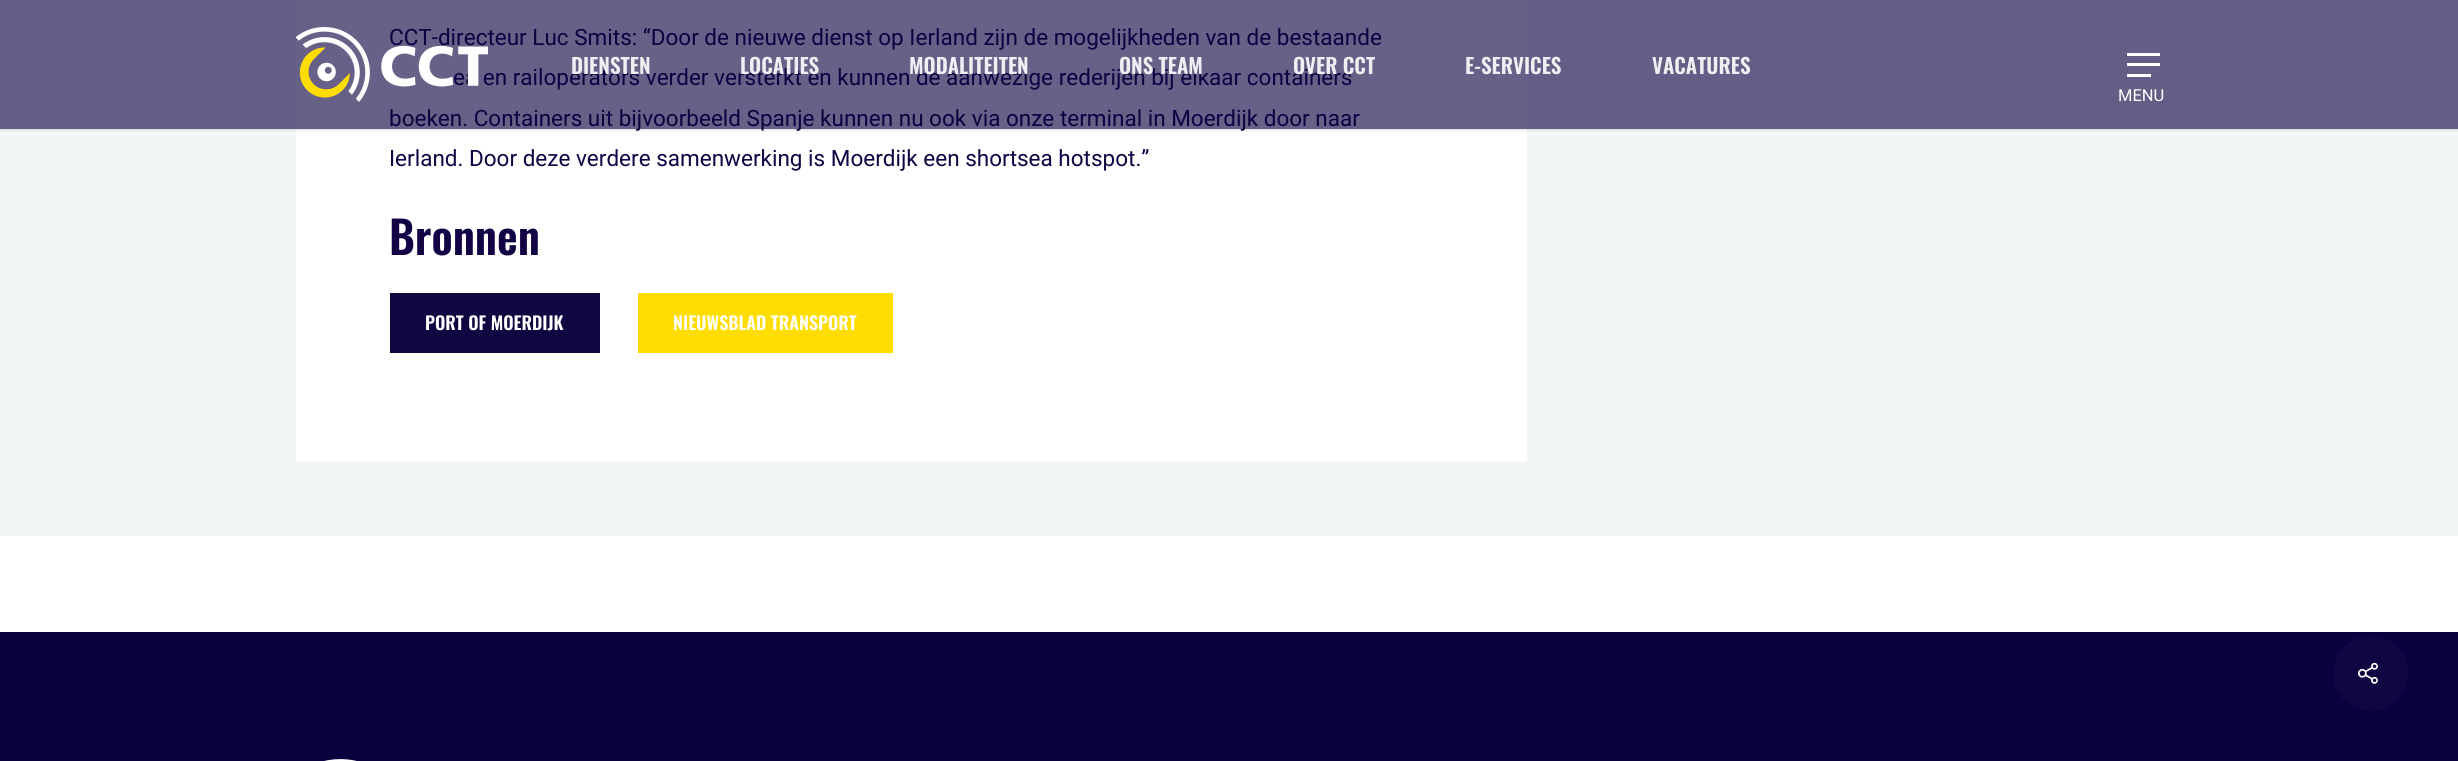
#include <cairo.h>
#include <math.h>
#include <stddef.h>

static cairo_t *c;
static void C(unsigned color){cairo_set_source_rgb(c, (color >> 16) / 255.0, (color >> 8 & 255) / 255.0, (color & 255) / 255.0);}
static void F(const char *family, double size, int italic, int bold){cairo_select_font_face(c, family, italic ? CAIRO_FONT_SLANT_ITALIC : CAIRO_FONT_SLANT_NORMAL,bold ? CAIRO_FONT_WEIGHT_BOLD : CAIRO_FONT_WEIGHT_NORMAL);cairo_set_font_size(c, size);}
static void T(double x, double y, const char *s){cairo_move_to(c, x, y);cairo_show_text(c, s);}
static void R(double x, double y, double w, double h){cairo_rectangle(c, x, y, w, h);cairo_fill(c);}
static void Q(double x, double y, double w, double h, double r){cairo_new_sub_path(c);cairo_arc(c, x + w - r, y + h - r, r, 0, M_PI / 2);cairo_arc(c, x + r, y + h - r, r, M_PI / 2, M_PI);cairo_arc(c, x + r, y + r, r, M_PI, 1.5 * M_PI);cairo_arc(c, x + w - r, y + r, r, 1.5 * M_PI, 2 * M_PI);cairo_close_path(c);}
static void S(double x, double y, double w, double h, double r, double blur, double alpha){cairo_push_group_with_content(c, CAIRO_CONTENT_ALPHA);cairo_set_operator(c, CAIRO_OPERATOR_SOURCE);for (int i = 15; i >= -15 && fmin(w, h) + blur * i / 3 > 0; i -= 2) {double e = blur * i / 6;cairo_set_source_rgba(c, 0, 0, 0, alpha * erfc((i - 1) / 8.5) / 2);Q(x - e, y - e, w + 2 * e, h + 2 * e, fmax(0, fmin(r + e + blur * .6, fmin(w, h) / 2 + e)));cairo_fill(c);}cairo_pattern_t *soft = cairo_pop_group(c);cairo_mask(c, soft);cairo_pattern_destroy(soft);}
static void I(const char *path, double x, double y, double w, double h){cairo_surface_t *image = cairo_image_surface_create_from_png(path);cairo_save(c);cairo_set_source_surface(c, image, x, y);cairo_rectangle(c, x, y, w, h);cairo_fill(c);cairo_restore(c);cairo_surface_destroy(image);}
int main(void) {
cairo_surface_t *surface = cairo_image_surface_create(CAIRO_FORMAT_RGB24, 2458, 761);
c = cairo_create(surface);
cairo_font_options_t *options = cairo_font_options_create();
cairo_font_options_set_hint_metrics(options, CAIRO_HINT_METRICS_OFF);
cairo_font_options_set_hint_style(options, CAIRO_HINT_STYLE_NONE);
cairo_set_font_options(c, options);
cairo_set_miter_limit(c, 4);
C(0xffffff);
cairo_paint(c);
C(0xf2f6f7);
R(0,0,2458,536);
C(0xffffff);
R(296,0,1231,461);
F("Roboto",22.5,0,0);
C(0x110344);
T(389,45,"CCT-directeur Luc Smits: “Door de nieuwe dienst op Ierland zijn de mogelijkheden van de bestaande");
T(453,85,"ea en railoperators verder versterkt en kunnen de aanwezige rederijen bij elkaar containers");
T(389,126,"boeken. Containers uit bijvoorbeeld Spanje kunnen nu ook via onze terminal in Moerdijk door naar");
T(389,166,"Ierland. Door deze verdere samenwerking is Moerdijk een shortsea hotspot.”");
F("Oswald SemiBold",45,0,0);
T(389,255,"Bronnen");
C(0x0e0741);
R(390,293,210,60);
F("Oswald SemiBold",18,0,0);
C(0xffffff);
T(425,330,"PORT OF MOERDIJK");
C(0xffdd00);
R(638,293,255,60);
C(0xffffff);
T(673,330,"NIEUWSBLAD TRANSPORT");
C(0x0a0040);
R(0,632,2458,129);
I("1.png",324,759,33,2);
C(0x0e0741);
cairo_arc(c,2370.5,673.5,37.5,0,2 * M_PI);
cairo_fill(c);
I("2.png",2358,662,20,22);
cairo_save(c);
cairo_rectangle(c,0,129,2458,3);
cairo_clip(c);
C(0x000000);
S(0,-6,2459,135,0,2,.22);
cairo_restore(c);
cairo_set_source_rgba(c,0.039,0,0.251,0.62);
R(0,0,2458,129);
I("3.png",296,27,192,75);
F("Oswald SemiBold",21,0,0);
C(0xefeff3);
T(571,74,"DIENSTEN");
T(740,74,"LOCATIES");
T(909,74,"MODALITEITEN");
T(1119,74,"ONS TEAM");
T(1293,74,"OVER CCT");
T(1465,74,"E-SERVICES");
T(1652,74,"VACATURES");
C(0xffffff);
R(2127,53,33,3);
R(2127,74,24,3);
R(2127,63,33,3);
F("Roboto",16.5,0,0);
T(2118,101,"MENU");
cairo_surface_write_to_png(surface, "o.png");
cairo_font_options_destroy(options);
cairo_destroy(c);
cairo_surface_destroy(surface);
return 0;
}
